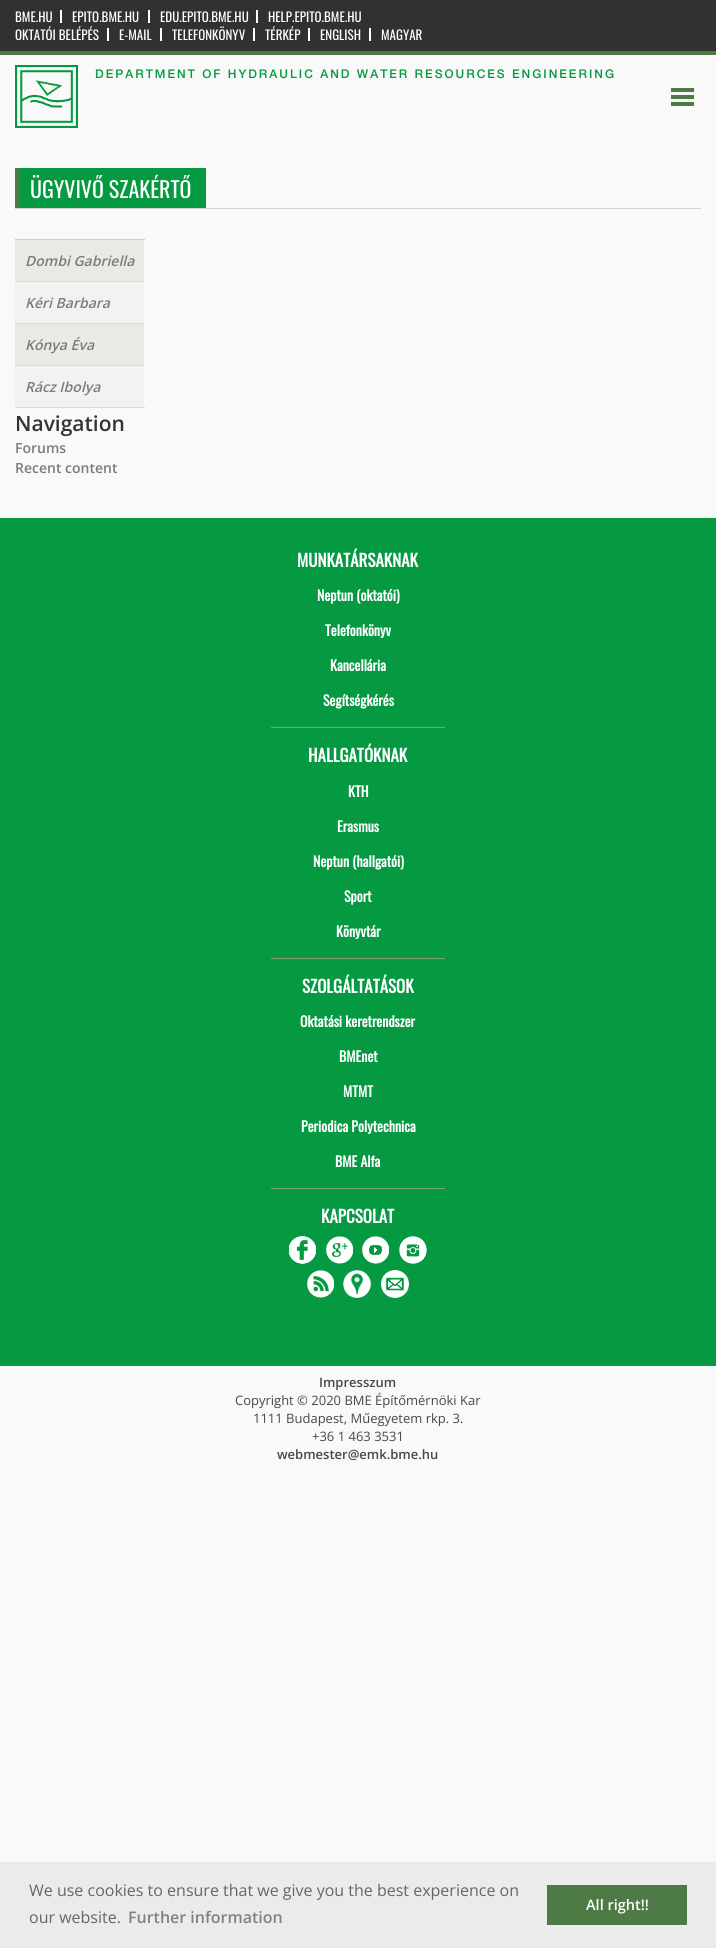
import math
import cairocffi as cairo

surface = cairo.ImageSurface(cairo.FORMAT_RGB24, 716, 1948)
ctx = cairo.Context(surface)
options = cairo.FontOptions()
options.set_hint_metrics(cairo.HINT_METRICS_OFF)
options.set_hint_style(cairo.HINT_STYLE_NONE)
ctx.set_font_options(options)
ctx.set_miter_limit(4)


def rgb(r, g, b):
    ctx.set_source_rgb(r / 255, g / 255, b / 255)


def face(family, size, italic, bold):
    ctx.select_font_face(family, cairo.FONT_SLANT_ITALIC if italic else cairo.FONT_SLANT_NORMAL, cairo.FONT_WEIGHT_BOLD if bold else cairo.FONT_WEIGHT_NORMAL)
    ctx.set_font_size(size)


def label(x, y, s):
    ctx.move_to(x, y)
    ctx.show_text(s)


def tracked(x, y, s, letter, word):
    ctx.move_to(x, y)
    for ch in s:
        ctx.show_text(ch)
        ctx.rel_move_to(letter + word * (ch == ' '), 0)


def rect(x, y, w, h):
    ctx.rectangle(x, y, w, h)
    ctx.fill()


def image(path, x, y, w, h):
    ctx.save()
    ctx.set_source_surface(cairo.ImageSurface.create_from_png(path), x, y)
    ctx.rectangle(x, y, w, h)
    ctx.fill()
    ctx.restore()


rgb(249, 249, 250)
ctx.paint()
rgb(49, 49, 49)
rect(0, 0, 716, 51)
rgb(78, 122, 69)
rect(0, 51, 716, 4)
face('Oswald', 13, 0, 0)
rgb(255, 255, 255)
label(15, 22, 'BME.HU')
rect(60, 10, 2, 13)
label(72, 22, 'EPITO.BME.HU')
rect(148, 10, 2, 13)
label(160, 22, 'EDU.EPITO.BME.HU')
rect(256, 10, 2, 13)
label(268, 22, 'HELP.EPITO.BME.HU')
label(15, 40, 'OKTATÓI BELÉPÉS')
rect(107, 28, 2, 13)
label(119, 40, 'E-MAIL')
rect(160, 28, 2, 13)
label(172, 40, 'TELEFONKÖNYV')
rect(253, 28, 2, 13)
label(265, 40, 'TÉRKÉP')
rect(308, 28, 2, 13)
label(320, 40, 'ENGLISH')
rect(369, 28, 2, 13)
label(381, 40, 'MAGYAR')
image('image0.png', 15, 65, 63, 63)
face('Helvetica Neue Medium', 12, 0, 0)
rgb(5, 153, 65)
tracked(95, 78, 'DEPARTMENT OF HYDRAULIC AND WATER RESOURCES ENGINEERING', 2, 0)
rgb(78, 122, 69)
rect(671, 88, 23, 4)
rect(671, 95, 23, 4)
rect(671, 102, 23, 4)
rgb(210, 210, 210)
rect(15, 208, 686, 1)
rgb(5, 153, 65)
rect(19, 168, 187, 40)
rgb(78, 122, 69)
rect(15, 168, 4, 40)
face('Oswald', 22, 0, 0)
rgb(255, 255, 255)
label(30, 198, 'ÜGYVIVŐ SZAKÉRTŐ')
rgb(204, 204, 204)
rect(15, 239, 130, 1)
rgb(232, 235, 228)
rect(15, 240, 129, 41)
rgb(213, 220, 226)
rect(15, 281, 130, 1)
face('Open Sans SemiBold', 14, 1, 0)
rgb(123, 123, 123)
label(25, 266, 'Dombi Gabriella')
rgb(241, 243, 240)
rect(15, 282, 129, 41)
rgb(213, 220, 226)
rect(15, 323, 130, 1)
rgb(123, 123, 123)
label(25, 308, 'Kéri Barbara')
rgb(232, 235, 228)
rect(15, 324, 129, 41)
rgb(213, 220, 226)
rect(15, 365, 130, 1)
rgb(123, 123, 123)
label(25, 350, 'Kónya Éva')
rgb(241, 243, 240)
rect(15, 366, 129, 41)
rgb(213, 220, 226)
rect(15, 407, 130, 1)
rgb(123, 123, 123)
label(25, 392, 'Rácz Ibolya')
face('Open Sans SemiBold', 21, 0, 0)
rgb(51, 51, 51)
label(15, 431, 'Navigation')
face('Open Sans SemiBold', 14, 0, 0)
rgb(123, 123, 123)
label(15, 453, 'Forums')
label(15, 473, 'Recent content')
rgb(5, 153, 65)
rect(0, 518, 716, 848)
rgb(125, 162, 110)
rect(271, 727, 174, 1)
face('Oswald', 17, 0, 1)
rgb(255, 255, 255)
label(297, 567, 'MUNKATÁRSAKNAK')
face('Oswald', 14, 0, 1)
label(317, 601, 'Neptun (oktatói)')
label(325, 636, 'Telefonkönyv')
label(330, 671, 'Kancellária')
label(323, 706, 'Segítségkérés')
rgb(125, 162, 110)
rect(271, 958, 174, 1)
face('Oswald', 17, 0, 1)
rgb(255, 255, 255)
label(308, 762, 'HALLGATÓKNAK')
face('Oswald', 14, 0, 1)
label(348, 797, 'KTH')
label(337, 832, 'Erasmus')
label(313, 867, 'Neptun (hallgatói)')
label(344, 902, 'Sport')
label(336, 937, 'Könyvtár')
rgb(125, 162, 110)
rect(271, 1188, 174, 1)
face('Oswald', 17, 0, 1)
rgb(255, 255, 255)
label(302, 993, 'SZOLGÁLTATÁSOK')
face('Oswald', 14, 0, 1)
label(300, 1027, 'Oktatási keretrendszer')
label(339, 1062, 'BMEnet')
label(343, 1097, 'MTMT')
label(301, 1132, 'Periodica Polytechnica')
label(335, 1167, 'BME Alfa')
face('Oswald', 17, 0, 1)
label(321, 1223, 'KAPCSOLAT')
image('image1.png', 289, 1236, 27, 28)
image('image2.png', 326, 1236, 27, 28)
image('image3.png', 362, 1236, 27, 28)
image('image4.png', 399, 1236, 28, 28)
image('image5.png', 307, 1270, 27, 28)
image('image6.png', 343, 1270, 28, 28)
image('image7.png', 381, 1270, 28, 28)
face('Open Sans SemiBold', 13, 0, 0)
rgb(72, 72, 72)
label(319, 1387, 'Impresszum')
face('Open Sans', 13, 0, 0)
label(235, 1405, 'Copyright © 2020 BME Építőmérnöki Kar')
label(253, 1423, '1111 Budapest, Műegyetem rkp. 3.')
label(312, 1441, '+36 1 463 3531')
face('Open Sans SemiBold', 13, 0, 0)
label(277, 1459, 'webmester@emk.bme.hu')
rgb(235, 235, 235)
rect(0, 1862, 716, 86)
face('Open Sans', 16, 0, 0)
rgb(102, 102, 102)
label(29, 1896, 'We use cookies to ensure that we give you the best experience on')
label(29, 1923, 'our website.')
face('Open Sans SemiBold', 16, 0, 0)
rgb(129, 129, 129)
label(128, 1923, 'Further information')
rgb(78, 122, 69)
rect(547, 1885, 140, 40)
face('Open Sans SemiBold', 14.5, 0, 0)
rgb(255, 255, 255)
label(586, 1910, 'All right!!')
surface.write_to_png('render.png')
